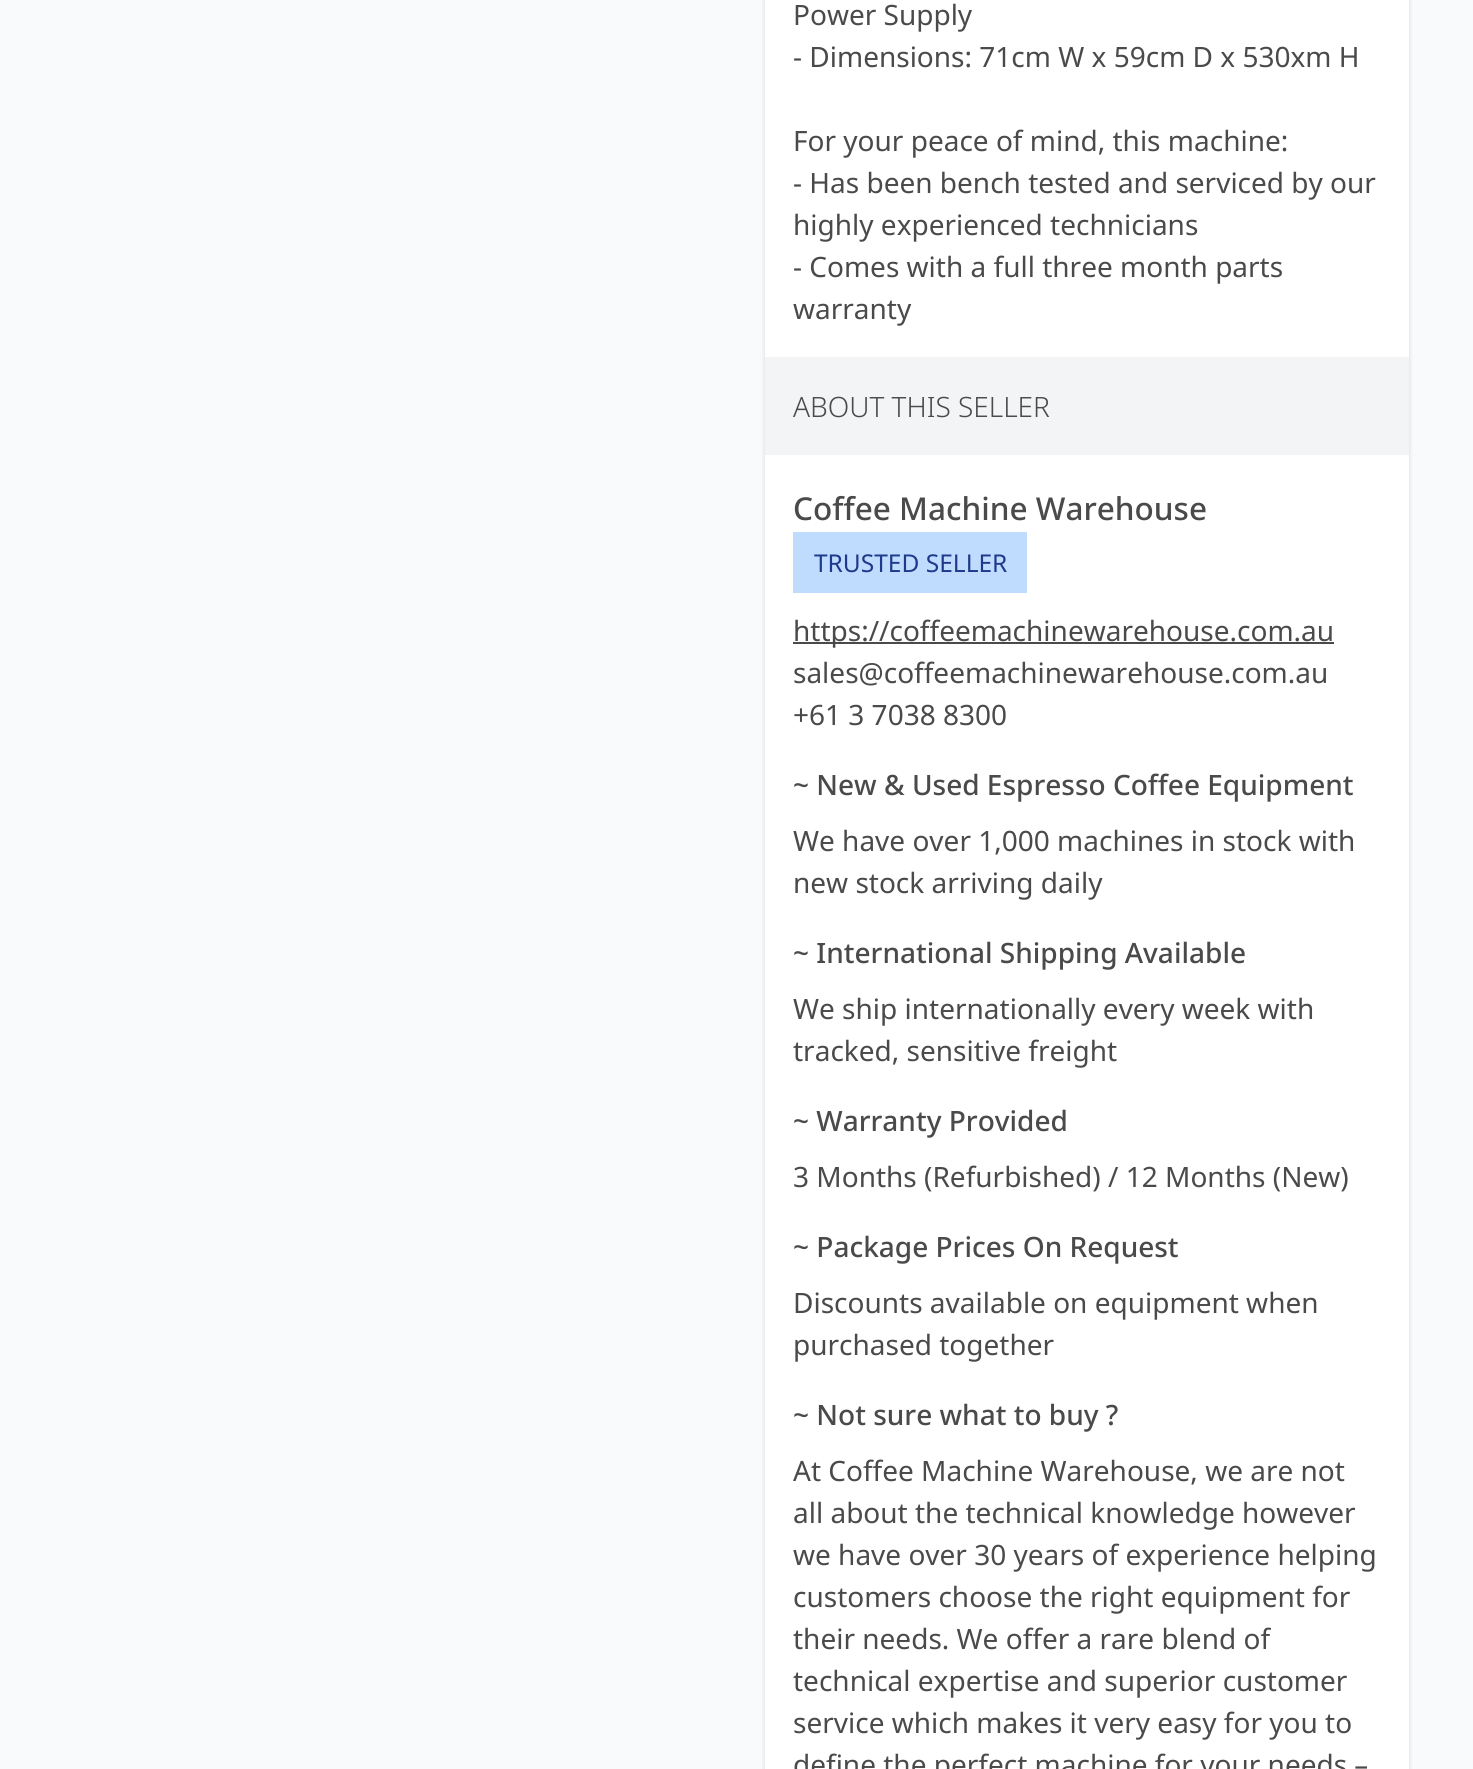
import math
import cairocffi as cairo

surface = cairo.ImageSurface(cairo.FORMAT_RGB24, 1473, 1769)
ctx = cairo.Context(surface)
options = cairo.FontOptions()
options.set_hint_metrics(cairo.HINT_METRICS_OFF)
options.set_hint_style(cairo.HINT_STYLE_NONE)
ctx.set_font_options(options)
ctx.set_miter_limit(4)


def rgb(r, g, b):
    ctx.set_source_rgb(r / 255, g / 255, b / 255)


def face(family, size, italic, bold):
    ctx.select_font_face(family, cairo.FONT_SLANT_ITALIC if italic else cairo.FONT_SLANT_NORMAL, cairo.FONT_WEIGHT_BOLD if bold else cairo.FONT_WEIGHT_NORMAL)
    ctx.set_font_size(size)


def label(x, y, s):
    ctx.move_to(x, y)
    ctx.show_text(s)


def rect(x, y, w, h):
    ctx.rectangle(x, y, w, h)
    ctx.fill()


def rrect(x, y, w, h, r):
    ctx.new_sub_path()
    for i, (u, v) in enumerate([(x + w - r, y + h - r), (x + r, y + h - r), (x + r, y + r), (x + w - r, y + r)]):
        ctx.arc(u, v, r, i * math.pi / 2, (i + 1) * math.pi / 2)
    ctx.close_path()


def soft_shadow(x, y, w, h, r, blur, alpha):
    ctx.push_group_with_content(cairo.CONTENT_ALPHA)
    ctx.set_operator(cairo.OPERATOR_SOURCE)
    for i in range(15, -16, -2):
        e = blur * i / 6
        if min(w, h) + 2 * e > 0:
            ctx.set_source_rgba(0, 0, 0, alpha * math.erfc((i - 1) / 8.5) / 2)
            rrect(x - e, y - e, w + 2 * e, h + 2 * e, max(0, min(r + e + blur * .6, min(w, h) / 2 + e)))
            ctx.fill()
    ctx.mask(ctx.pop_group())


rgb(249, 250, 251)
ctx.paint()
rgb(0, 0, 0)
soft_shadow(765, -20, 644, 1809, 14, 2, 0.06)
soft_shadow(765, -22, 644, 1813, 14, 2.5, 0.1)
rgb(255, 255, 255)
rect(765, 0, 644, 1769)
face('Noto Sans', 28, 0, 0)
rgb(74, 74, 74)
label(793, 25, 'Power Supply')
label(793, 67, '- Dimensions: 71cm W x 59cm D x 530xm H')
label(793, 151, 'For your peace of mind, this machine:')
label(793, 193, '- Has been bench tested and serviced by our')
label(793, 235, 'highly experienced technicians')
label(793, 277, '- Comes with a full three month parts')
label(793, 319, 'warranty')
rgb(243, 244, 246)
rect(765, 357, 644, 98)
face('Noto Sans Light', 28, 0, 0)
rgb(74, 74, 74)
label(793, 417, 'ABOUT THIS SELLER')
face('Noto Sans Medium', 31.5, 0, 0)
label(793, 520, 'Coffee Machine Warehouse')
rgb(191, 219, 254)
rect(793, 532, 234, 61)
face('Noto Sans', 24.5, 0, 0)
rgb(30, 58, 138)
label(814, 572, 'TRUSTED SELLER')
rgb(74, 74, 74)
rect(793, 642, 541, 2)
face('Noto Sans', 28, 0, 0)
label(793, 641, 'https://coffeemachinewarehouse.com.au')
label(793, 683, 'sales@coffeemachinewarehouse.com.au')
label(793, 725, '+61 3 7038 8300')
face('Noto Sans Medium', 28, 0, 0)
label(793, 795, '~ New & Used Espresso Coffee Equipment')
face('Noto Sans', 28, 0, 0)
label(793, 851, 'We have over 1,000 machines in stock with')
label(793, 893, 'new stock arriving daily')
face('Noto Sans Medium', 28, 0, 0)
label(793, 963, '~ International Shipping Available')
face('Noto Sans', 28, 0, 0)
label(793, 1019, 'We ship internationally every week with')
label(793, 1061, 'tracked, sensitive freight')
face('Noto Sans Medium', 28, 0, 0)
label(793, 1131, '~ Warranty Provided')
face('Noto Sans', 28, 0, 0)
label(793, 1187, '3 Months (Refurbished) / 12 Months (New)')
face('Noto Sans Medium', 28, 0, 0)
label(793, 1257, '~ Package Prices On Request')
face('Noto Sans', 28, 0, 0)
label(793, 1313, 'Discounts available on equipment when')
label(793, 1355, 'purchased together')
face('Noto Sans Medium', 28, 0, 0)
label(793, 1425, '~ Not sure what to buy ?')
face('Noto Sans', 28, 0, 0)
label(793, 1481, 'At Coffee Machine Warehouse, we are not')
label(793, 1523, 'all about the technical knowledge however')
label(793, 1565, 'we have over 30 years of experience helping')
label(793, 1607, 'customers choose the right equipment for')
label(793, 1649, 'their needs. We offer a rare blend of')
label(793, 1691, 'technical expertise and superior customer')
label(793, 1733, 'service which makes it very easy for you to')
label(793, 1775, 'define the perfect machine for your needs –')
surface.write_to_png('render.png')
